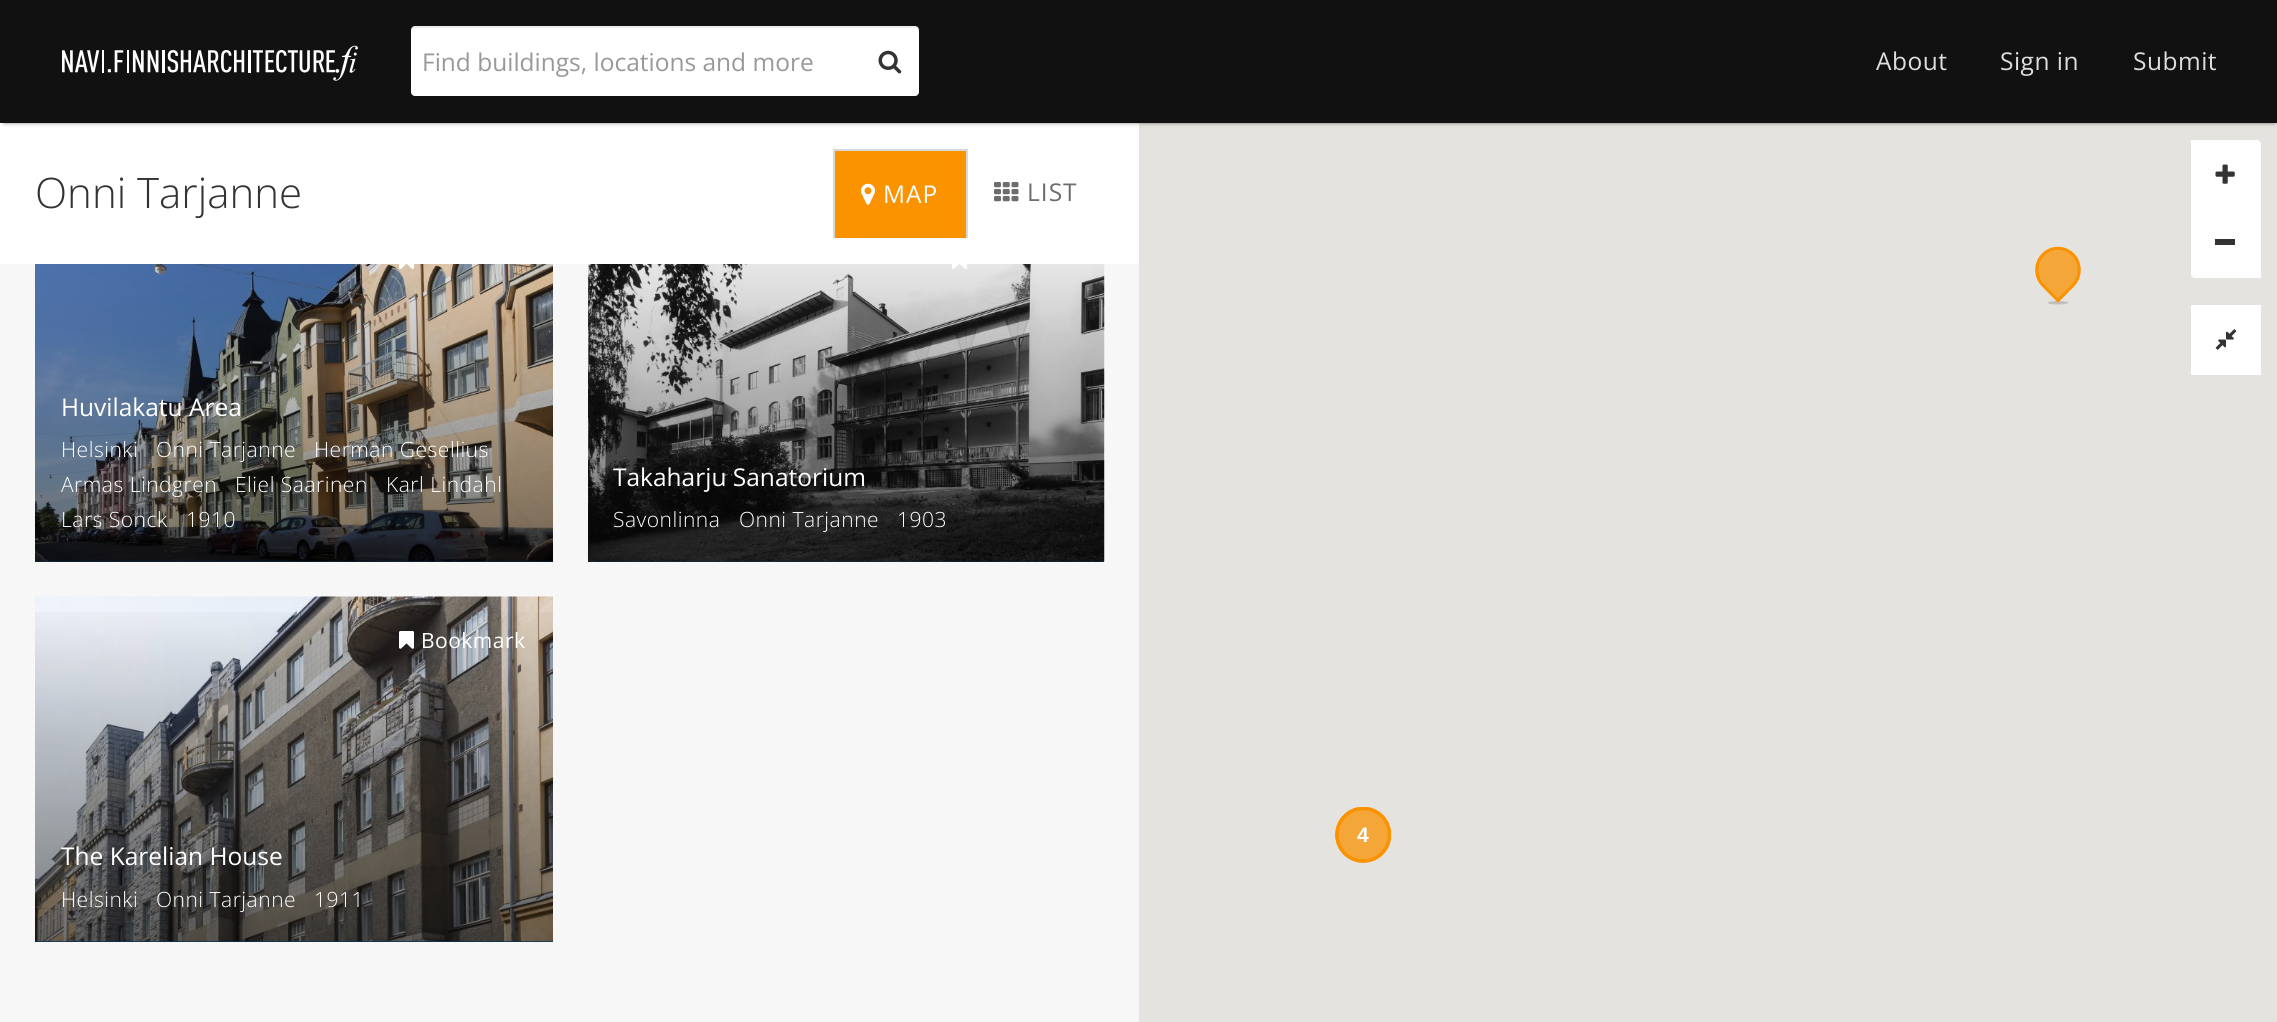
import math
import cairocffi as cairo

surface = cairo.ImageSurface(cairo.FORMAT_RGB24, 2277, 1022)
ctx = cairo.Context(surface)
options = cairo.FontOptions()
options.set_hint_metrics(cairo.HINT_METRICS_OFF)
options.set_hint_style(cairo.HINT_STYLE_NONE)
ctx.set_font_options(options)
ctx.set_miter_limit(4)


def rgb(r, g, b):
    ctx.set_source_rgb(r / 255, g / 255, b / 255)


def face(family, size, italic, bold):
    ctx.select_font_face(family, cairo.FONT_SLANT_ITALIC if italic else cairo.FONT_SLANT_NORMAL, cairo.FONT_WEIGHT_BOLD if bold else cairo.FONT_WEIGHT_NORMAL)
    ctx.set_font_size(size)


def label(x, y, s):
    ctx.move_to(x, y)
    ctx.show_text(s)


def tracked(x, y, s, letter, word):
    ctx.move_to(x, y)
    for ch in s:
        ctx.show_text(ch)
        ctx.rel_move_to(letter + word * (ch == ' '), 0)


def rect(x, y, w, h):
    ctx.rectangle(x, y, w, h)
    ctx.fill()


def rrect(x, y, w, h, r):
    ctx.new_sub_path()
    for i, (u, v) in enumerate([(x + w - r, y + h - r), (x + r, y + h - r), (x + r, y + r), (x + w - r, y + r)]):
        ctx.arc(u, v, r, i * math.pi / 2, (i + 1) * math.pi / 2)
    ctx.close_path()


def soft_shadow(x, y, w, h, r, blur, alpha):
    ctx.push_group_with_content(cairo.CONTENT_ALPHA)
    ctx.set_operator(cairo.OPERATOR_SOURCE)
    for i in range(15, -16, -2):
        e = blur * i / 6
        if min(w, h) + 2 * e > 0:
            ctx.set_source_rgba(0, 0, 0, alpha * math.erfc((i - 1) / 8.5) / 2)
            rrect(x - e, y - e, w + 2 * e, h + 2 * e, max(0, min(r + e + blur * .6, min(w, h) / 2 + e)))
            ctx.fill()
    ctx.mask(ctx.pop_group())


def image(path, x, y, w, h):
    ctx.save()
    ctx.set_source_surface(cairo.ImageSurface.create_from_png(path), x, y)
    ctx.rectangle(x, y, w, h)
    ctx.fill()
    ctx.restore()


rgb(247, 247, 247)
ctx.paint()
rgb(255, 255, 255)
rect(0, 123, 1139, 141)
rgb(229, 227, 223)
rect(1139, 123, 1138, 899)
rgb(0, 0, 0)
soft_shadow(4, 7, 2271, 116, 0, 2, 0.5)
rgb(17, 17, 17)
rect(0, 0, 2277, 123)
image('image0.png', 62, 45, 296, 36)
rgb(255, 255, 255)
rrect(411, 26, 508, 70, 4)
ctx.fill()
ctx.set_source_rgba(0, 0, 0, 0.07)
ctx.new_path()
ctx.move_to(415, 28)
ctx.line_to(915, 28)
ctx.curve_to(917, 28, 919, 30, 919, 32)
ctx.curve_to(919, 29, 919, 26, 915, 26)
ctx.line_to(415, 26)
ctx.curve_to(411, 26, 411, 29, 411, 32)
ctx.curve_to(411, 30, 413, 28, 415, 28)
ctx.close_path()
ctx.fill()
face('Open Sans', 24.5, 0, 0)
rgb(153, 153, 153)
label(422, 71, 'Find buildings, locations and more')
image('image1.png', 878, 50, 24, 24)
rgb(221, 221, 221)
tracked(1876, 70, 'About', 0.5, 0)
tracked(2000, 70, 'Sign in', 0.5, 0)
tracked(2133, 70, 'Submit', 0.5, 0)
face('Open Sans Light', 42, 0, 0)
rgb(51, 51, 51)
label(35, 208, 'Onni Tarjanne')
rgb(251, 146, 0)
rect(835, 151, 131, 87)
rgb(216, 216, 216)
rect(833, 149, 135, 2)
rect(966, 149, 2, 89)
rect(833, 149, 2, 89)
image('image2.png', 861, 183, 14, 22)
face('Open Sans', 24.5, 0, 0)
rgb(255, 255, 255)
tracked(883, 203, 'MAP', 1, 0)
image('image3.png', 994, 182, 25, 20)
rgb(109, 109, 109)
tracked(1027, 201, 'LIST', 1, 0)
rgb(17, 102, 170)
rect(35, 561, 518, 1)
image('image4.png', 35, 264, 518, 298)
gradient = cairo.LinearGradient(294, 217, 294, 562)
gradient.add_color_stop_rgba(0, 0, 0, 0, 0)
gradient.add_color_stop_rgba(1, 0, 0, 0, 0.5)
ctx.set_source(gradient)
rect(35, 264, 518, 298)
image('image5.png', 399, 264, 15, 5)
rgb(255, 255, 255)
label(61, 416, 'Huvilakatu Area')
face('Open Sans Light', 21, 0, 0)
tracked(61, 457, 'Helsinki', 0.5, 0)
tracked(156, 457, 'Onni Tarjanne', 0.5, 0)
tracked(314, 457, 'Herman Gesellius', 0.5, 0)
tracked(61, 492, 'Armas Lindgren', 0.5, 0)
tracked(235, 492, 'Eliel Saarinen', 0.5, 0)
tracked(386, 492, 'Karl Lindahl', 0.5, 0)
tracked(61, 527, 'Lars Sonck', 0.5, 0)
tracked(186, 527, '1910', 0.5, 0)
rgb(17, 102, 170)
rect(588, 561, 516, 1)
image('image6.png', 588, 264, 517, 298)
gradient = cairo.LinearGradient(846, 217, 846, 562)
gradient.add_color_stop_rgba(0, 0, 0, 0, 0)
gradient.add_color_stop_rgba(1, 0, 0, 0, 0.5)
ctx.set_source(gradient)
rect(588, 264, 516, 298)
image('image7.png', 952, 264, 15, 5)
face('Open Sans', 24.5, 0, 0)
rgb(255, 255, 255)
label(613, 486, 'Takaharju Sanatorium')
face('Open Sans Light', 21, 0, 0)
tracked(613, 527, 'Savonlinna', 0.5, 0)
tracked(739, 527, 'Onni Tarjanne', 0.5, 0)
tracked(897, 527, '1903', 0.5, 0)
rgb(17, 102, 170)
rect(35, 941, 518, 1)
image('image8.png', 35, 596, 518, 346)
gradient = cairo.LinearGradient(294, 597, 294, 942)
gradient.add_color_stop_rgba(0, 0, 0, 0, 0)
gradient.add_color_stop_rgba(1, 0, 0, 0, 0.5)
ctx.set_source(gradient)
rect(35, 612, 518, 330)
image('image9.png', 399, 631, 15, 18)
face('Open Sans', 21, 0, 0)
rgb(255, 255, 255)
tracked(421, 648, 'Bookmark', 0.5, 0)
face('Open Sans', 24.5, 0, 0)
label(61, 865, 'The Karelian House')
face('Open Sans Light', 21, 0, 0)
tracked(61, 907, 'Helsinki', 0.5, 0)
tracked(156, 907, 'Onni Tarjanne', 0.5, 0)
tracked(314, 907, '1911', 0.5, 0)
ctx.new_path()
ctx.move_to(2191, 140)
ctx.line_to(2257, 140)
ctx.curve_to(2259, 140, 2261, 142, 2261, 144)
ctx.line_to(2261, 210)
ctx.line_to(2191, 210)
ctx.close_path()
ctx.fill()
image('image10.png', 2215, 164, 20, 20)
ctx.new_path()
ctx.move_to(2191, 208)
ctx.line_to(2261, 208)
ctx.line_to(2261, 278)
ctx.line_to(2195, 278)
ctx.curve_to(2193, 278, 2191, 276, 2191, 274)
ctx.close_path()
ctx.fill()
rgb(51, 51, 51)
rect(2215, 239, 20, 6)
rgb(255, 255, 255)
rect(2191, 305, 70, 70)
image('image11.png', 2215, 329, 22, 21)
image('image12.png', 2035, 246, 46, 59)
image('image13.png', 1335, 807, 56, 56)
face('Liberation Sans', 21, 0, 1)
label(1357, 842, '4')
surface.write_to_png('render.png')
